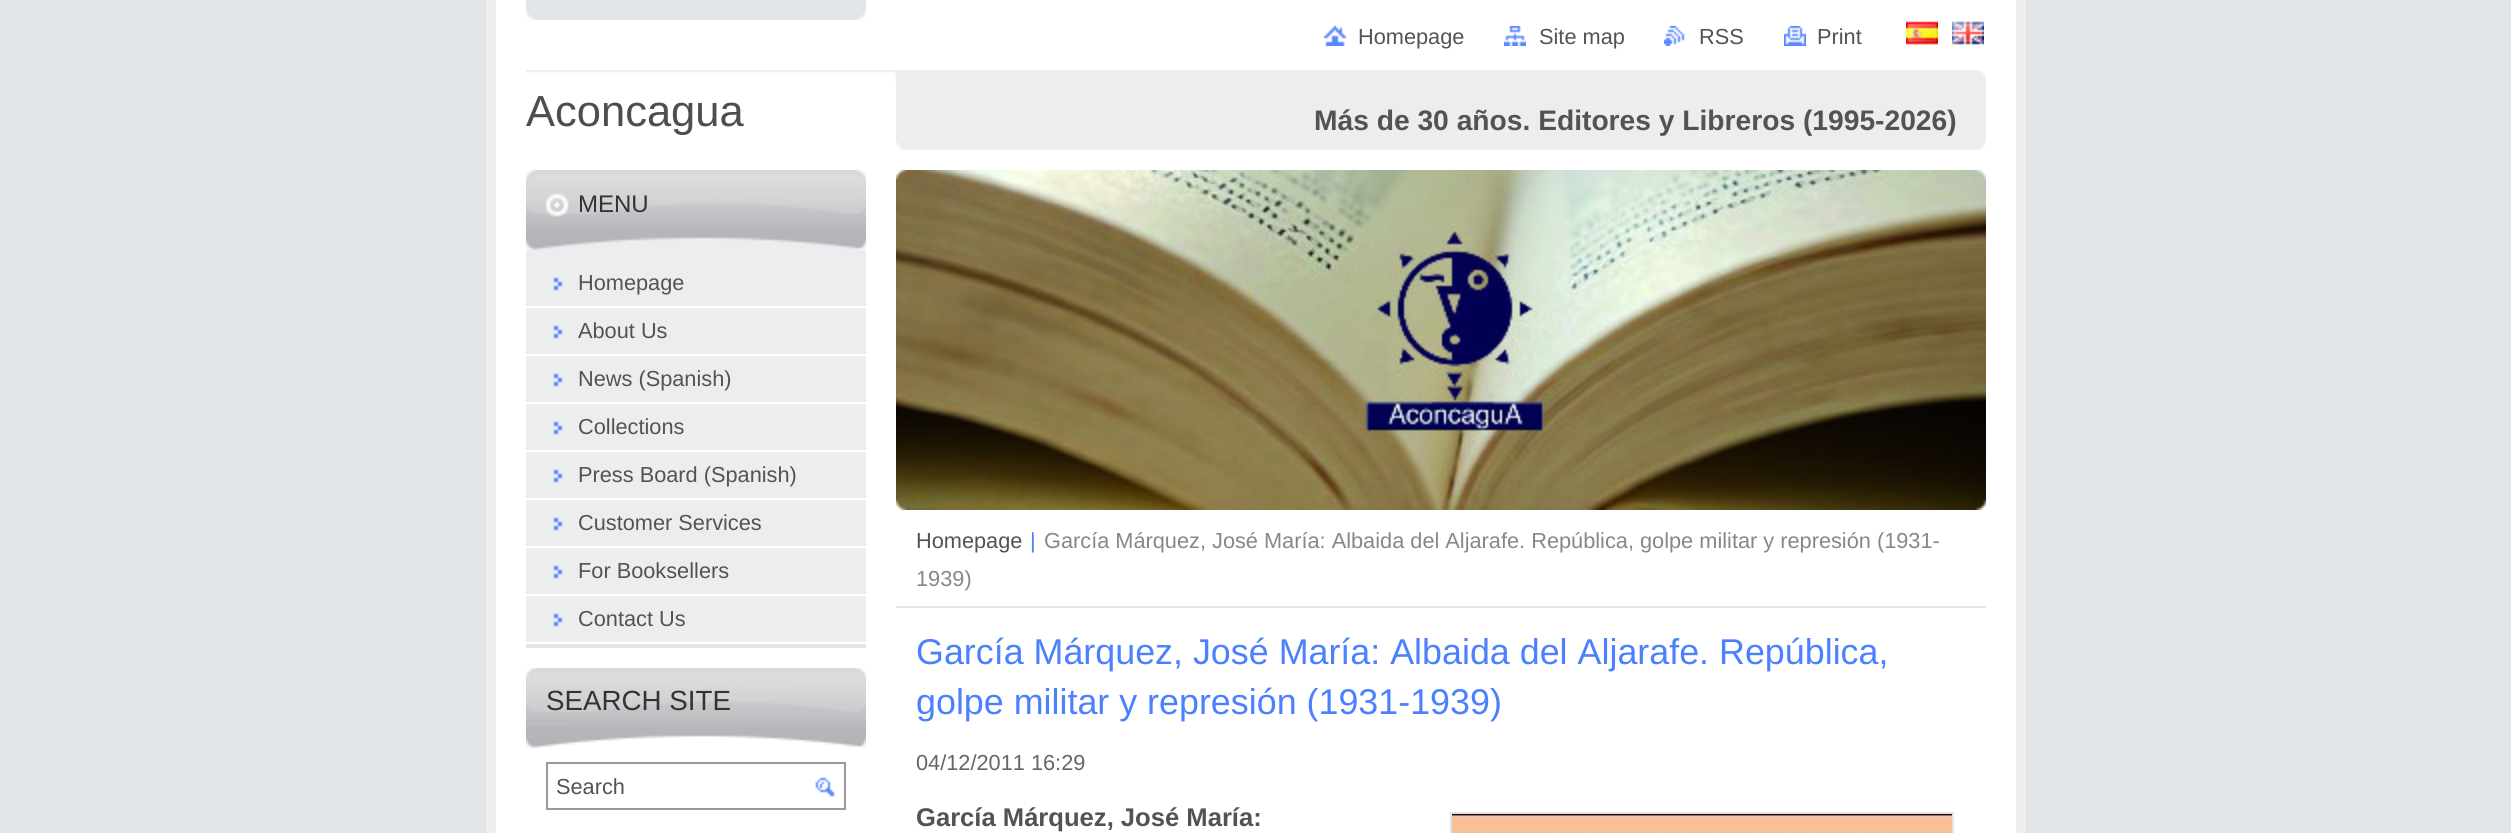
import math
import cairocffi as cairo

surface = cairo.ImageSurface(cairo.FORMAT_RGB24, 2511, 833)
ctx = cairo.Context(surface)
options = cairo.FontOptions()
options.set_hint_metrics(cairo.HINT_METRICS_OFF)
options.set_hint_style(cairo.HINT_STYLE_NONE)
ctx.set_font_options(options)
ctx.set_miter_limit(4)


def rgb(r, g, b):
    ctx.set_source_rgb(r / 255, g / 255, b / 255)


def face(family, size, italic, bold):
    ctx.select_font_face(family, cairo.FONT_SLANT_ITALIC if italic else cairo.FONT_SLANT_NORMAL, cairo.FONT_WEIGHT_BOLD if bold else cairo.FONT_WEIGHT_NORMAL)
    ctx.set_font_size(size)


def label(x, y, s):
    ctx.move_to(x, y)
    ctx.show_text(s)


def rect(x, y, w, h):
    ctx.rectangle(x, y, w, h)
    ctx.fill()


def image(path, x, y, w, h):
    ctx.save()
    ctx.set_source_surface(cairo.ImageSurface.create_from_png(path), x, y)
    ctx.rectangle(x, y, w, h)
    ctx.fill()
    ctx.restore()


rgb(226, 229, 232)
ctx.paint()
rgb(255, 255, 255)
rect(496, 0, 1520, 833)
image('image0.png', 526, 0, 340, 20)
rgb(239, 239, 239)
rect(2016, 0, 10, 833)
rect(486, 0, 10, 833)
image('image1.png', 1324, 26, 22, 20)
face('Liberation Sans', 21.75, 0, 0)
rgb(83, 83, 83)
label(1358, 44, 'Homepage')
image('image2.png', 1504, 26, 22, 20)
label(1539, 44, 'Site map')
image('image3.png', 1664, 26, 21, 20)
label(1699, 44, 'RSS')
image('image4.png', 1784, 26, 22, 20)
label(1817, 44, 'Print')
image('image5.png', 1906, 21, 32, 24)
image('image6.png', 1952, 21, 32, 24)
image('image7.png', 526, 70, 1460, 12)
face('Liberation Sans', 43.5, 0, 0)
rgb(77, 78, 79)
label(526, 126, 'Aconcagua')
rgb(235, 237, 239)
rect(896, 82, 1090, 59)
image('image8.png', 896, 141, 1090, 9)
face('Liberation Sans', 28.2, 0, 1)
rgb(83, 83, 83)
label(1314, 130, 'Más de 30 años. Editores y Libreros (1995-2026)')
rgb(226, 229, 232)
rect(526, 644, 340, 4)
rgb(235, 237, 239)
rect(526, 250, 340, 392)
rgb(180, 182, 185)
rect(526, 228, 340, 11)
image('image9.png', 526, 170, 340, 58)
image('image10.png', 526, 237, 340, 13)
face('Liberation Sans', 24, 0, 0)
rgb(51, 51, 51)
label(578, 212, 'MENU')
image('image11.png', 553, 277, 10, 14)
rgb(255, 255, 255)
rect(526, 306, 340, 2)
face('Liberation Sans', 21.75, 0, 0)
rgb(83, 83, 83)
label(578, 290, 'Homepage')
image('image11.png', 553, 325, 10, 14)
rgb(255, 255, 255)
rect(526, 354, 340, 2)
rgb(83, 83, 83)
label(578, 338, 'About Us')
image('image11.png', 553, 373, 10, 14)
rgb(255, 255, 255)
rect(526, 402, 340, 2)
rgb(83, 83, 83)
label(578, 386, 'News (Spanish)')
image('image11.png', 553, 421, 10, 14)
rgb(255, 255, 255)
rect(526, 450, 340, 2)
rgb(83, 83, 83)
label(578, 434, 'Collections')
image('image11.png', 553, 469, 10, 14)
rgb(255, 255, 255)
rect(526, 498, 340, 2)
rgb(83, 83, 83)
label(578, 482, 'Press Board (Spanish)')
image('image11.png', 553, 517, 10, 14)
rgb(255, 255, 255)
rect(526, 546, 340, 2)
rgb(83, 83, 83)
label(578, 530, 'Customer Services')
image('image11.png', 553, 565, 10, 14)
rgb(255, 255, 255)
rect(526, 594, 340, 2)
rgb(83, 83, 83)
label(578, 578, 'For Booksellers')
image('image11.png', 553, 613, 10, 14)
label(578, 626, 'Contact Us')
rgb(180, 182, 185)
rect(526, 726, 340, 11)
image('image12.png', 526, 668, 340, 58)
image('image13.png', 526, 735, 340, 13)
face('Liberation Sans', 27.75, 0, 0)
rgb(51, 51, 51)
label(546, 710, 'SEARCH SITE')
ctx.rectangle(547, 763, 298, 46)
rgb(153, 153, 153)
ctx.stroke()
face('Liberation Sans', 21.75, 0, 0)
rgb(83, 83, 83)
label(556, 794, 'Search')
image('image14.png', 815, 777, 20, 20)
image('image15.png', 896, 170, 1090, 340)
image('image16.png', 896, 170, 1090, 340)
rgb(226, 229, 232)
rect(896, 606, 1090, 2)
rgb(83, 83, 83)
label(916, 548, 'Homepage')
rgb(75, 128, 255)
label(1030, 548, '|')
rgb(135, 135, 135)
label(1044, 548, 'García Márquez, José María: Albaida del Aljarafe. República, golpe militar y represión (1931-')
label(916, 586, '1939)')
face('Liberation Sans', 35.85, 0, 0)
rgb(75, 128, 255)
label(916, 664, 'García Márquez, José María: Albaida del Aljarafe. República,')
label(916, 714, 'golpe militar y represión (1931-1939)')
face('Liberation Sans', 21.75, 0, 0)
rgb(102, 102, 102)
label(916, 770, '04/12/2011 16:29')
face('Liberation Sans', 25.6, 0, 1)
rgb(83, 83, 83)
label(916, 826, 'García Márquez, José María:')
ctx.rectangle(1451, 813, 502, 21)
rgb(226, 229, 232)
ctx.stroke()
image('image17.png', 1452, 814, 500, 19)
surface.write_to_png('render.png')
